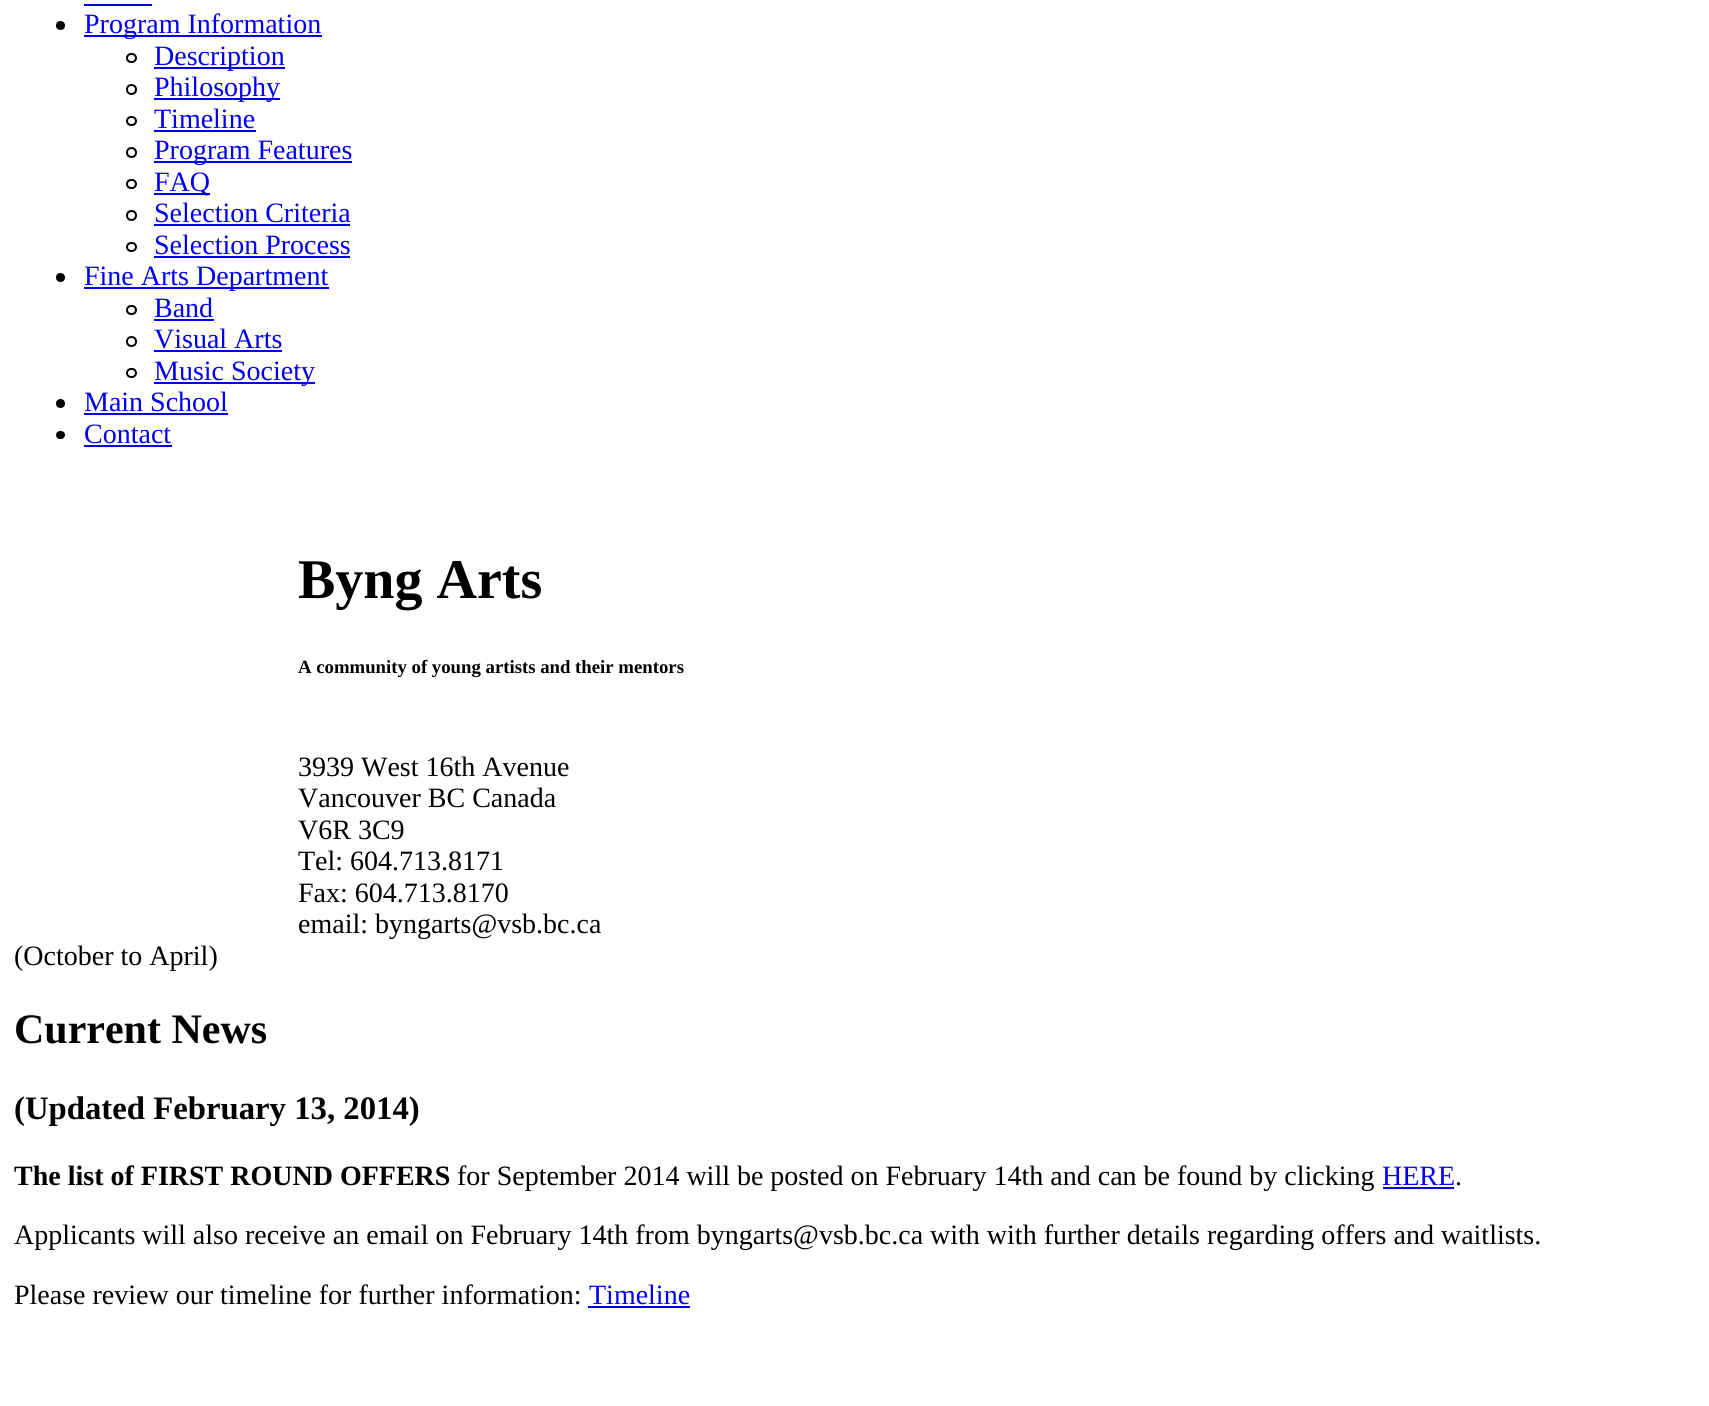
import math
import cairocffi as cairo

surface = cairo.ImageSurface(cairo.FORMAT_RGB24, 1709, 1406)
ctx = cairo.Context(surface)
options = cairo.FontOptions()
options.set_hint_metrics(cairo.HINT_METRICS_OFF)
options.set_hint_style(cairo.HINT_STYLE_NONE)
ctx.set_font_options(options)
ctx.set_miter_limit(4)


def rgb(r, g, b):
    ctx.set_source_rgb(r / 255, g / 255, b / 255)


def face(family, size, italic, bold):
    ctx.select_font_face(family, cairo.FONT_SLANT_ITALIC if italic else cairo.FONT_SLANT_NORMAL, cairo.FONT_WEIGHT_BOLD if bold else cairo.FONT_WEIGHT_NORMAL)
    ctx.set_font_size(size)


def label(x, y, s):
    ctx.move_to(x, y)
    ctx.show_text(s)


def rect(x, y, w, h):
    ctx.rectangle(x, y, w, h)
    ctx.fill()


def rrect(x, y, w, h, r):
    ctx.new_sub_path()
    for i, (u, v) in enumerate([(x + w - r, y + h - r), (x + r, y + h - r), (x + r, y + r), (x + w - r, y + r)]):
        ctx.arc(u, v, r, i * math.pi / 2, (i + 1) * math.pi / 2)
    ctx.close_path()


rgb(255, 255, 255)
ctx.paint()
rgb(0, 0, 238)
rect(84, 4, 68, 2)
rgb(0, 0, 0)
ctx.arc(60.5, 25.5, 4.5, 0, 2 * math.pi)
ctx.fill()
rgb(0, 0, 238)
rect(84, 35, 238, 2)
face('Liberation Serif', 28, 0, 0)
label(84, 33, 'Program Information')
rrect(127, 54, 9, 8, 4)
rgb(0, 0, 0)
ctx.stroke()
rgb(0, 0, 238)
rect(154, 67, 131, 2)
label(154, 65, 'Description')
ctx.new_path()
ctx.arc(131.5, 89.5, 4.5, 0, 2 * math.pi)
rgb(0, 0, 0)
ctx.stroke()
rgb(0, 0, 238)
rect(154, 98, 126, 2)
label(154, 96, 'Philosophy')
rrect(127, 117, 9, 8, 4)
rgb(0, 0, 0)
ctx.stroke()
rgb(0, 0, 238)
label(154, 128, 'Timeline')
rect(154, 130, 102, 2)
ctx.new_path()
ctx.arc(131.5, 152.5, 4.5, 0, 2 * math.pi)
rgb(0, 0, 0)
ctx.stroke()
rgb(0, 0, 238)
rect(154, 161, 198, 2)
label(154, 159, 'Program Features')
rrect(127, 180, 9, 8, 4)
rgb(0, 0, 0)
ctx.stroke()
rgb(0, 0, 238)
rect(154, 193, 56, 2)
label(154, 191, 'FAQ')
ctx.new_path()
ctx.arc(131.5, 215.5, 4.5, 0, 2 * math.pi)
rgb(0, 0, 0)
ctx.stroke()
rgb(0, 0, 238)
label(154, 222, 'Selection Criteria')
rect(154, 224, 196, 2)
rrect(127, 243, 9, 8, 4)
rgb(0, 0, 0)
ctx.stroke()
rgb(0, 0, 238)
label(154, 254, 'Selection Process')
rect(154, 256, 196, 2)
rgb(0, 0, 0)
ctx.new_path()
ctx.arc(60.5, 277.5, 4.5, 0, 2 * math.pi)
ctx.fill()
rgb(0, 0, 238)
rect(84, 287, 245, 2)
label(84, 285, 'Fine Arts Department')
rrect(127, 306, 9, 8, 4)
rgb(0, 0, 0)
ctx.stroke()
rgb(0, 0, 238)
label(154, 317, 'Band')
rect(154, 319, 60, 2)
ctx.new_path()
ctx.arc(131.5, 341.5, 4.5, 0, 2 * math.pi)
rgb(0, 0, 0)
ctx.stroke()
rgb(0, 0, 238)
label(154, 348, 'Visual Arts')
rect(154, 350, 128, 2)
rrect(127, 369, 9, 8, 4)
rgb(0, 0, 0)
ctx.stroke()
rgb(0, 0, 238)
rect(154, 382, 161, 2)
label(154, 380, 'Music Society')
rgb(0, 0, 0)
ctx.new_path()
ctx.arc(60.5, 403.5, 4.5, 0, 2 * math.pi)
ctx.fill()
rgb(0, 0, 238)
label(84, 411, 'Main School')
rect(84, 413, 144, 2)
rgb(0, 0, 0)
rrect(56, 431, 9, 8, 4)
ctx.fill()
rgb(0, 0, 238)
label(84, 443, 'Contact')
rect(84, 445, 88, 2)
face('Liberation Serif', 56, 0, 1)
rgb(0, 0, 0)
label(298, 598, 'Byng Arts')
face('Liberation Serif', 18.75, 0, 1)
label(298, 673, 'A community of young artists and their mentors')
face('Liberation Serif', 28, 0, 0)
label(298, 776, '3939 West 16th Avenue')
label(298, 807, 'Vancouver BC Canada')
label(298, 839, 'V6R 3C9')
label(298, 870, 'Tel: 604.713.8171')
label(298, 902, 'Fax: 604.713.8170')
label(298, 933, 'email: byngarts@vsb.bc.ca')
label(14, 965, '(October to April)')
face('Liberation Serif', 42, 0, 1)
label(14, 1043, 'Current News')
face('Liberation Serif', 32.75, 0, 1)
label(14, 1119, '(Updated February 13, 2014)')
face('Liberation Serif', 28, 0, 1)
label(14, 1185, 'The list of FIRST ROUND OFFERS')
face('Liberation Serif', 28, 0, 0)
label(457, 1185, 'for September 2014 will be posted on February 14th and can be found by clicking')
rgb(0, 0, 238)
label(1382, 1185, 'HERE')
rect(1383, 1187, 71, 2)
rgb(0, 0, 0)
label(1455, 1185, '.')
label(14, 1244, 'Applicants will also receive an email on February 14th from byngarts@vsb.bc.ca with with further details regarding offers and waitlists.')
label(14, 1304, 'Please review our timeline for further information:')
rgb(0, 0, 238)
label(589, 1304, 'Timeline')
rect(588, 1306, 102, 2)
surface.write_to_png('render.png')
